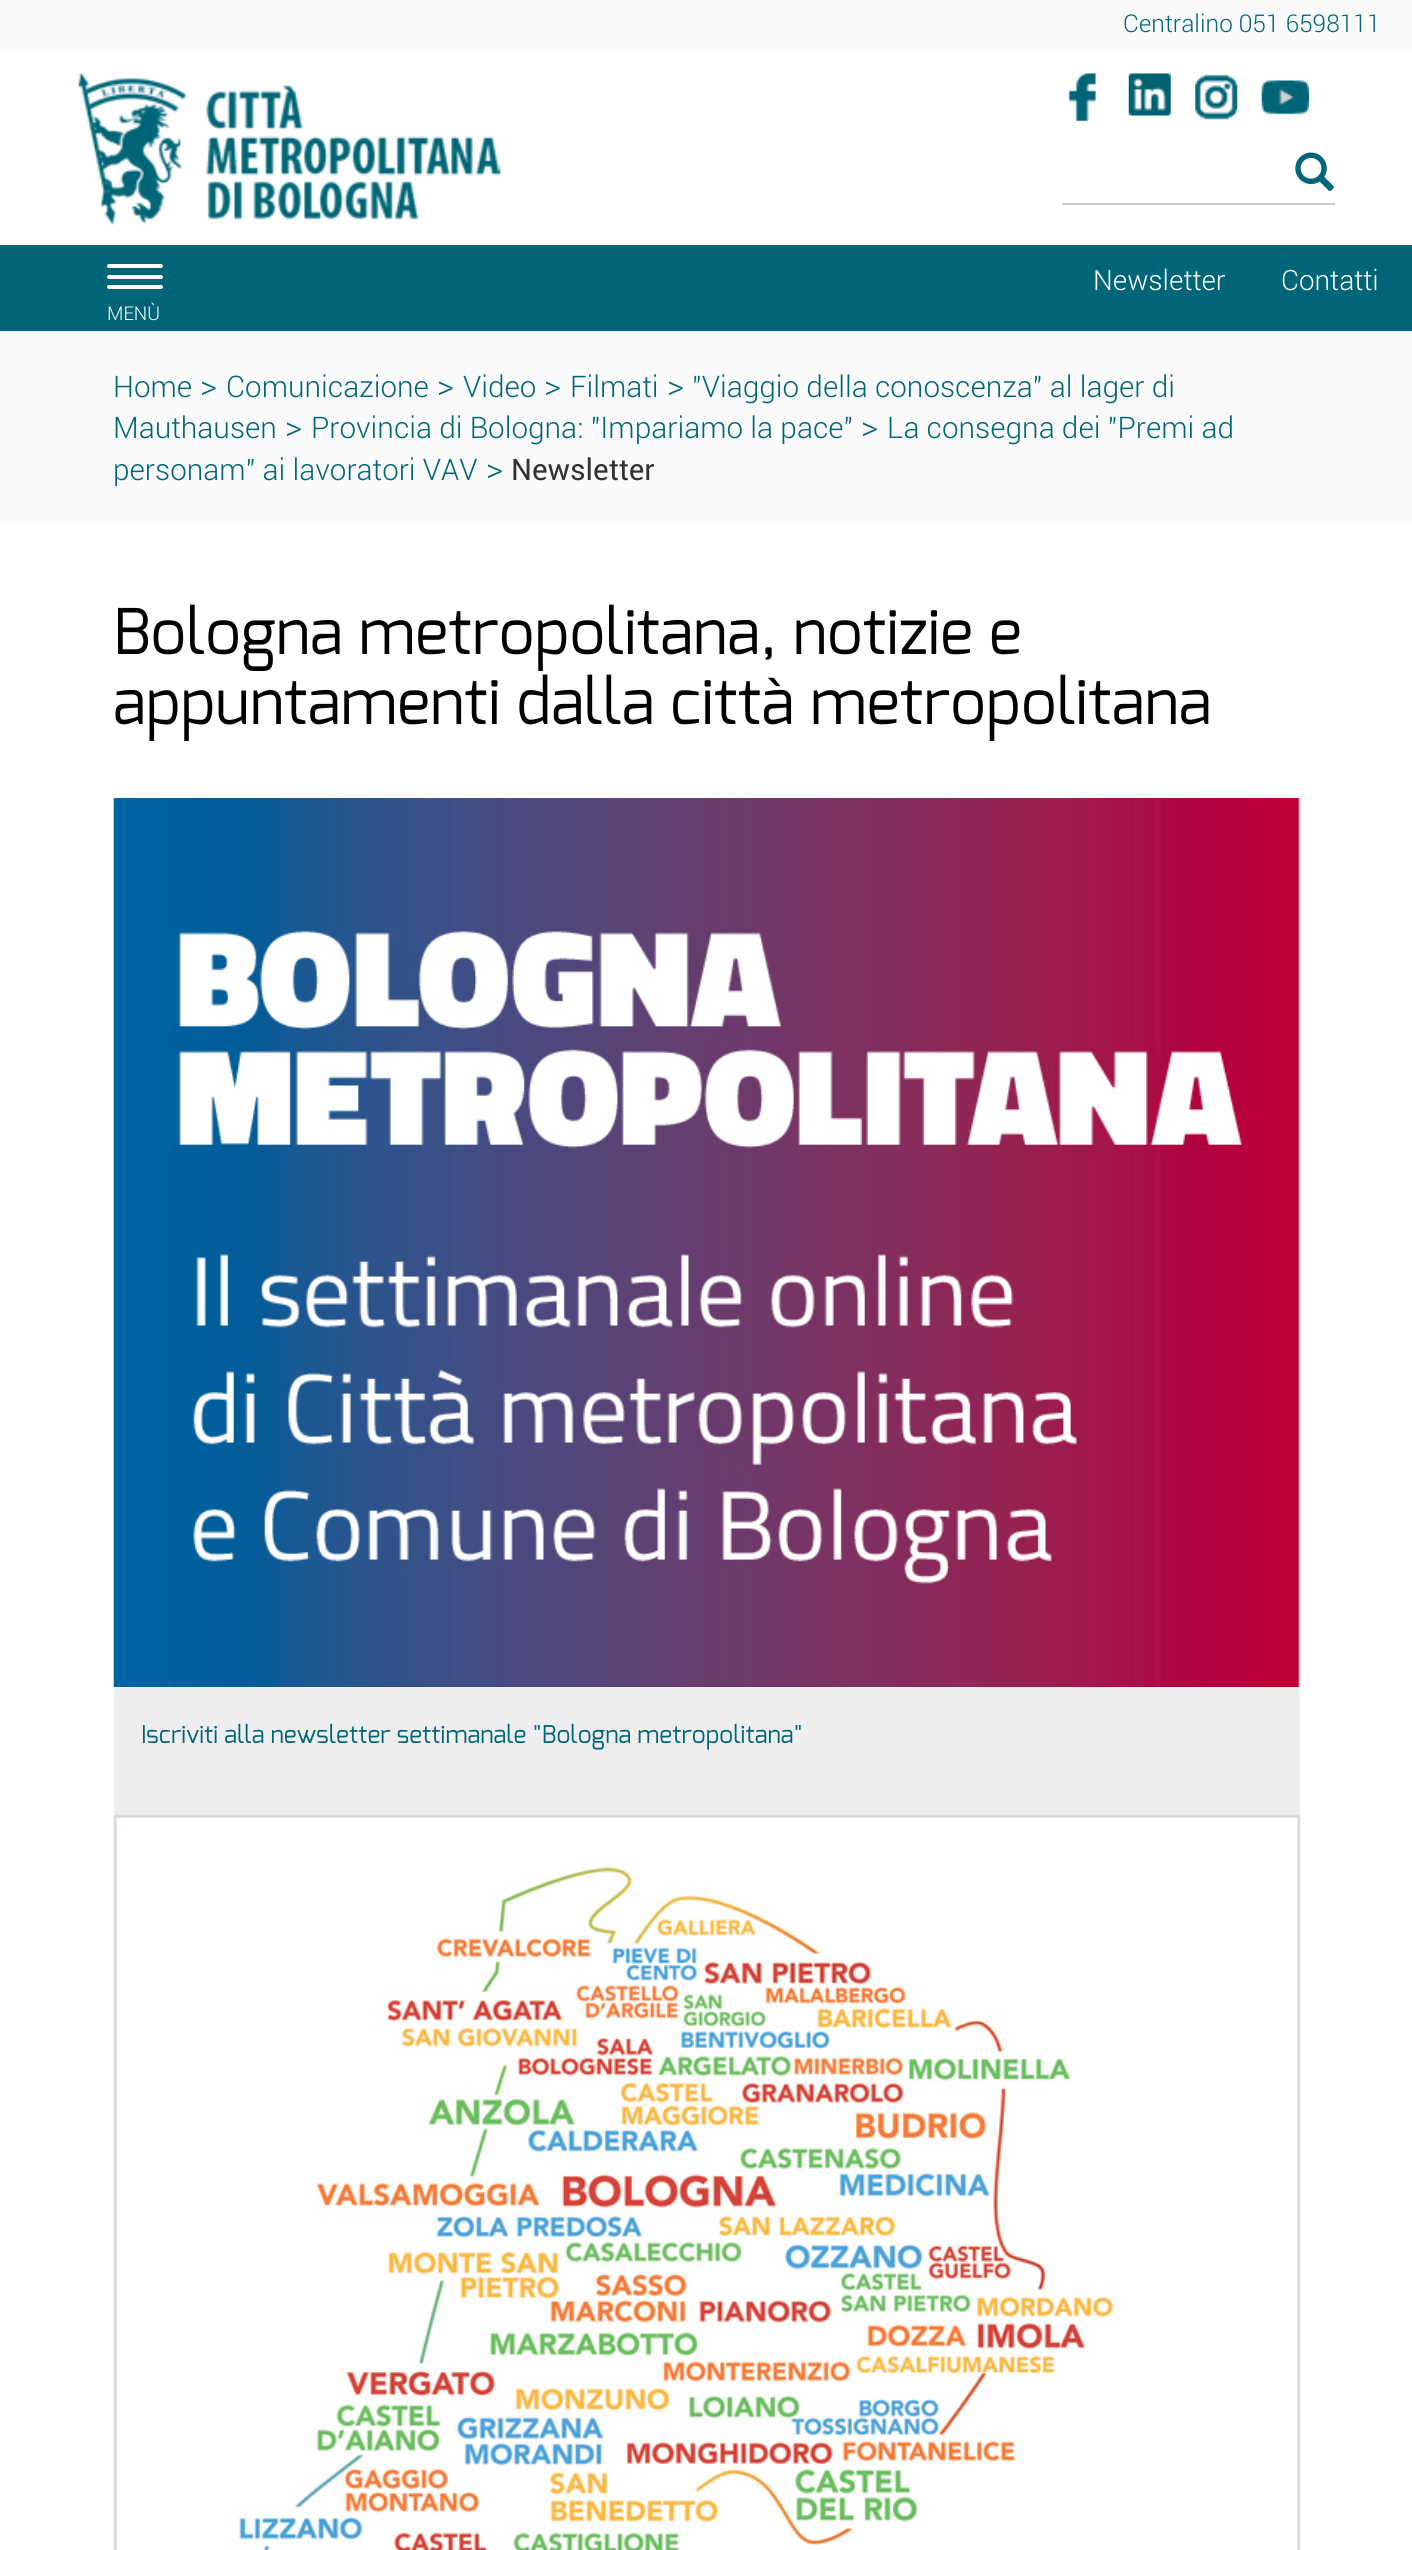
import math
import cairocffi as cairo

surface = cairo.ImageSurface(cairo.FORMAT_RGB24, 1412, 2550)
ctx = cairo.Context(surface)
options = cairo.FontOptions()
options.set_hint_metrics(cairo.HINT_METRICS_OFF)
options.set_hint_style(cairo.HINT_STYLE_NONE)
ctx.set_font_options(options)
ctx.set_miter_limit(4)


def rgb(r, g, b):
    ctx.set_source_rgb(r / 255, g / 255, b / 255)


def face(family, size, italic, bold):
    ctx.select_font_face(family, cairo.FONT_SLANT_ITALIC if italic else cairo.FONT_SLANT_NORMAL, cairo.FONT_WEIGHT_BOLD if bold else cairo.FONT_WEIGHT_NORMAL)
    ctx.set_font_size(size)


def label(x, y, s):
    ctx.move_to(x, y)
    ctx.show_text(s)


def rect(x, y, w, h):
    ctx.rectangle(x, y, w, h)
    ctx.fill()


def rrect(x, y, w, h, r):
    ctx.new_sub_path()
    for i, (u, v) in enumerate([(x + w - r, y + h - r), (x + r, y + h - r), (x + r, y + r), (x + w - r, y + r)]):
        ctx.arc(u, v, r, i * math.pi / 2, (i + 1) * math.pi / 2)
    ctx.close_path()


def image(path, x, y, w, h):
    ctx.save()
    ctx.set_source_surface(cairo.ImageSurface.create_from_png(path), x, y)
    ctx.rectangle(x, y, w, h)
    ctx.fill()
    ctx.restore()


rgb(255, 255, 255)
ctx.paint()
rgb(250, 250, 250)
rect(0, 0, 1412, 49)
face('Roboto Light', 24.5, 0, 0)
rgb(0, 102, 119)
label(1123, 32, 'Centralino 051 6598111')
image('image0.png', 78, 73, 423, 152)
image('image1.png', 1068, 73, 28, 48)
image('image2.png', 1128, 73, 43, 43)
image('image3.png', 1195, 74, 43, 46)
image('image4.png', 1261, 80, 48, 35)
image('image5.png', 1295, 152, 39, 39)
rgb(204, 204, 204)
rect(1062, 203, 273, 2)
rgb(0, 102, 119)
rect(0, 245, 1412, 86)
face('Roboto Light', 28, 0, 0)
rgb(255, 255, 255)
label(1093, 290, 'Newsletter')
label(1281, 290, 'Contatti')
rrect(107, 264, 56, 4, 2)
ctx.fill()
rrect(107, 275, 56, 4, 2)
ctx.fill()
rrect(107, 285, 56, 4, 2)
ctx.fill()
face('Roboto Light', 19, 0, 0)
label(107, 320, 'MENÙ')
rgb(250, 250, 250)
rect(0, 331, 1412, 194)
face('Roboto Light', 29.75, 0, 0)
rgb(0, 102, 119)
label(113, 397, 'Home')
face('Roboto Light', 33, 0, 0)
label(200, 397, '>')
face('Roboto Light', 29.75, 0, 0)
label(226, 397, 'Comunicazione')
face('Roboto Light', 33, 0, 0)
label(437, 397, '>')
face('Roboto Light', 29.75, 0, 0)
label(463, 397, 'Video')
face('Roboto Light', 33, 0, 0)
label(544, 397, '>')
face('Roboto Light', 29.75, 0, 0)
label(570, 397, 'Filmati')
face('Roboto Light', 33, 0, 0)
label(667, 397, '>')
face('Roboto Light', 29.75, 0, 0)
label(692, 397, '"Viaggio della conoscenza" al lager di')
label(113, 438, 'Mauthausen')
face('Roboto Light', 33, 0, 0)
label(285, 438, '>')
face('Roboto Light', 29.75, 0, 0)
label(311, 438, 'Provincia di Bologna: "Impariamo la pace"')
face('Roboto Light', 33, 0, 0)
label(861, 438, '>')
face('Roboto Light', 29.75, 0, 0)
label(887, 438, 'La consegna dei "Premi ad')
label(113, 480, 'personam" ai lavoratori VAV')
face('Roboto Light', 33, 0, 0)
label(486, 480, '>')
face('Roboto', 29.75, 0, 0)
rgb(51, 51, 51)
label(511, 480, 'Newsletter')
face('Exo', 63, 0, 0)
rgb(0, 0, 0)
label(113, 654, 'Bologna metropolitana, notizie e')
label(113, 724, 'appuntamenti dalla città metropolitana')
rgb(238, 238, 238)
rect(114, 1687, 1186, 128)
image('image6.png', 113, 798, 1188, 889)
face('Exo', 24.5, 0, 0)
rgb(0, 102, 119)
label(141, 1743, 'Iscriviti alla newsletter settimanale "Bologna metropolitana"')
image('image7.png', 113, 1814, 1188, 736)
surface.write_to_png('render.png')
